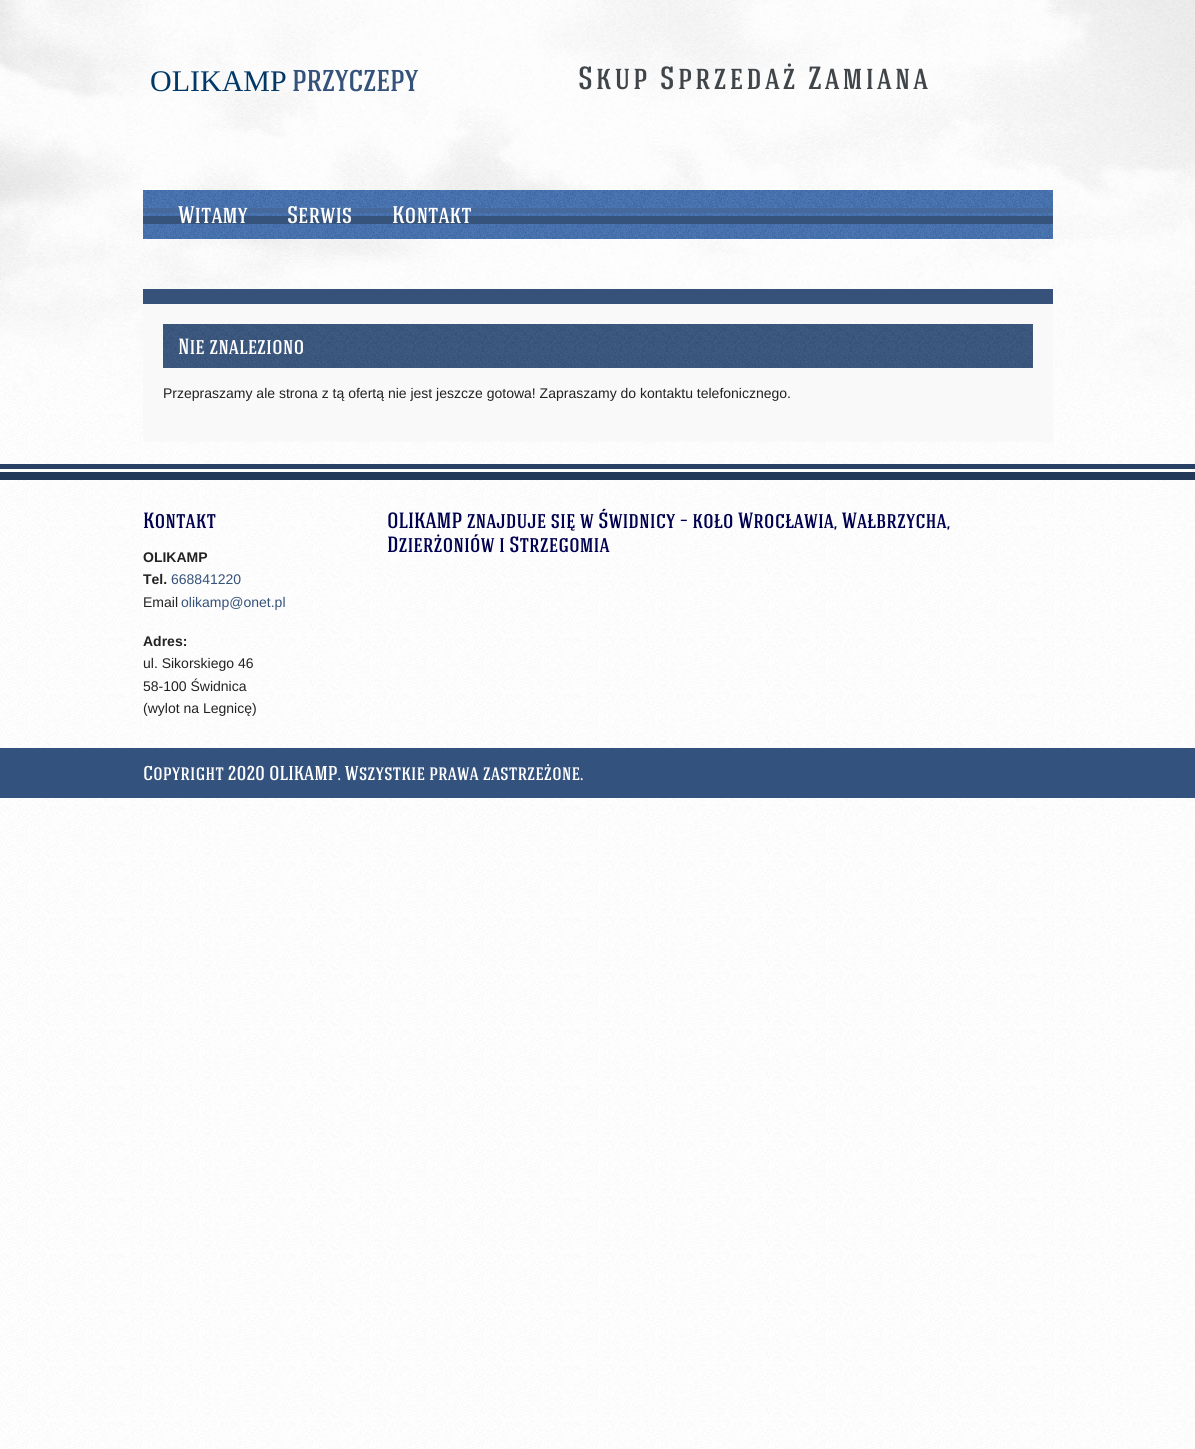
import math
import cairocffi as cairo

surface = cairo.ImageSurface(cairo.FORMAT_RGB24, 1195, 1449)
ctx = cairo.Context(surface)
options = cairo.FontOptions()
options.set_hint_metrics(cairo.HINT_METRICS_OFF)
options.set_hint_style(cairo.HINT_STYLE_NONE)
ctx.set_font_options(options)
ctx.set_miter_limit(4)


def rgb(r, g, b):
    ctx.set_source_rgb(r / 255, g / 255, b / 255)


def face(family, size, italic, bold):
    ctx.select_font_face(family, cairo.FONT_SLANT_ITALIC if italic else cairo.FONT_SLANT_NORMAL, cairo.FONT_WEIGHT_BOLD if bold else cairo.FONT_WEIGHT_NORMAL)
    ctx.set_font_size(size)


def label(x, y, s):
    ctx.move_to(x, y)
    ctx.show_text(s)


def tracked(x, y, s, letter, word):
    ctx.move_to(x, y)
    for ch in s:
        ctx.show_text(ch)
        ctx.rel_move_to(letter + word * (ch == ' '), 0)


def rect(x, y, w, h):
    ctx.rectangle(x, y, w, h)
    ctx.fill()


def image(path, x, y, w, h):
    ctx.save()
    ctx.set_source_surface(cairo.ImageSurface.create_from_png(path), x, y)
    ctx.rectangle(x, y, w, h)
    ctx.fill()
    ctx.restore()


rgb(255, 255, 255)
ctx.paint()
image('image0.png', 0, 0, 1195, 1449)
face('Liberation Serif', 30, 0, 0)
rgb(1, 56, 103)
label(150, 91, 'OLIKAMP')
face('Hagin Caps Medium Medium', 30, 0, 0)
rgb(53, 82, 123)
label(292, 91, 'PRZYCZEPY')
face('Hagin Caps Medium Medium', 32, 0, 0)
rgb(64, 69, 74)
tracked(578, 89, 'Skup Sprzedaż Zamiana', 3, 0)
image('image1.png', 143, 190, 910, 49)
face('Hagin Caps Medium Medium', 24, 0, 0)
rgb(254, 254, 255)
label(178, 223, 'Witamy')
label(287, 223, 'Serwis')
label(392, 223, 'Kontakt')
rgb(249, 249, 249)
rect(143, 304, 910, 138)
rgb(54, 82, 123)
rect(143, 289, 910, 15)
image('image2.png', 163, 324, 870, 44)
face('Hagin Caps Medium Medium', 22, 0, 0)
rgb(254, 254, 255)
label(178, 354, 'Nie znaleziono')
face('Liberation Sans', 14, 0, 0)
rgb(34, 34, 34)
label(163, 398, 'Przepraszamy ale strona z tą ofertą nie jest jeszcze gotowa! Zapraszamy do kontaktu telefonicznego.')
image('image3.png', 0, 464, 1195, 16)
face('Hagin Caps Medium Medium', 22, 0, 0)
rgb(0, 0, 80)
label(143, 528, 'Kontakt')
face('Liberation Sans', 14, 0, 1)
rgb(34, 34, 34)
label(143, 562, 'OLIKAMP')
label(143, 584, 'Tel.')
face('Liberation Sans', 14, 0, 0)
rgb(53, 82, 123)
label(171, 584, '668841220')
rgb(34, 34, 34)
label(143, 607, 'Email')
rgb(53, 82, 123)
label(181, 607, 'olikamp@onet.pl')
face('Liberation Sans', 14, 0, 1)
rgb(34, 34, 34)
label(143, 646, 'Adres:')
face('Liberation Sans', 14, 0, 0)
label(143, 668, 'ul. Sikorskiego 46')
label(143, 691, '58-100 Świdnica')
label(143, 713, '(wylot na Legnicę)')
face('Hagin Caps Medium Medium', 22, 0, 0)
rgb(0, 0, 80)
label(387, 528, 'OLIKAMP znajduje się w Świdnicy – koło Wrocławia, Wałbrzycha,')
label(387, 552, 'Dzierżoniów i Strzegomia')
rgb(51, 82, 126)
rect(0, 748, 1195, 50)
face('Hagin Caps Medium Medium', 20, 0, 0)
rgb(254, 254, 255)
label(143, 780, 'Copyright 2020 OLIKAMP. Wszystkie prawa zastrzeżone.')
surface.write_to_png('render.png')
